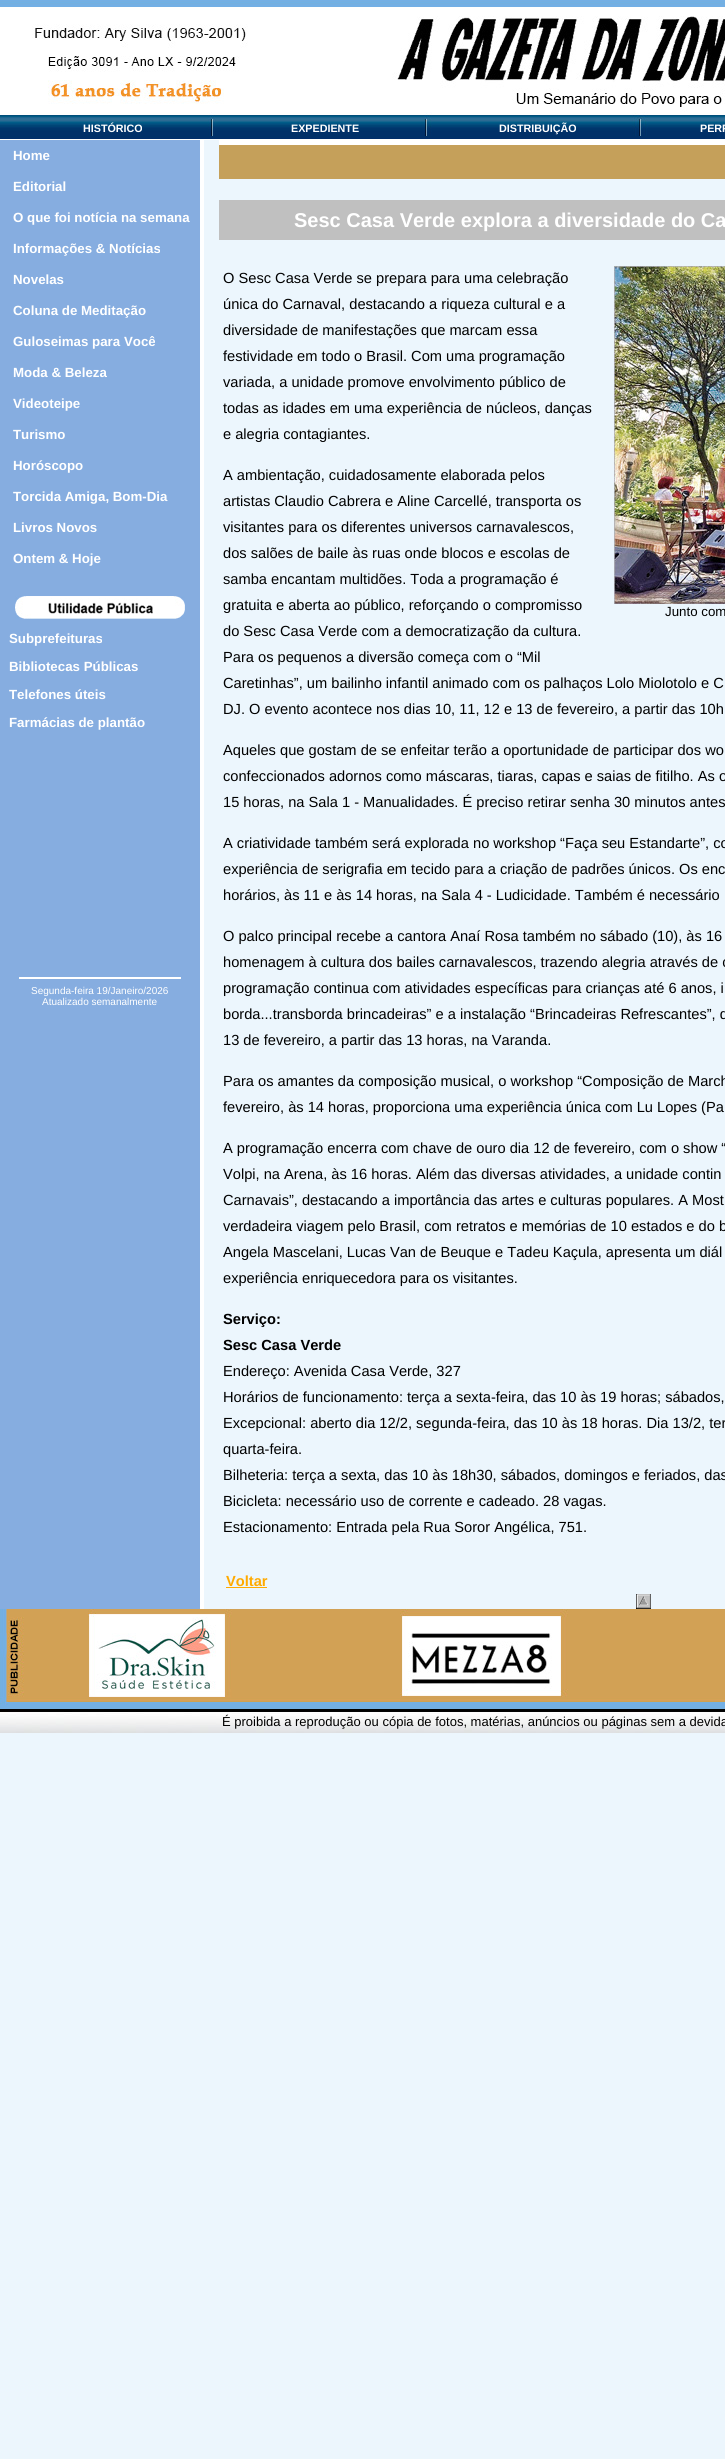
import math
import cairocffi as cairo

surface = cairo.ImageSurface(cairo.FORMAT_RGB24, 725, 2459)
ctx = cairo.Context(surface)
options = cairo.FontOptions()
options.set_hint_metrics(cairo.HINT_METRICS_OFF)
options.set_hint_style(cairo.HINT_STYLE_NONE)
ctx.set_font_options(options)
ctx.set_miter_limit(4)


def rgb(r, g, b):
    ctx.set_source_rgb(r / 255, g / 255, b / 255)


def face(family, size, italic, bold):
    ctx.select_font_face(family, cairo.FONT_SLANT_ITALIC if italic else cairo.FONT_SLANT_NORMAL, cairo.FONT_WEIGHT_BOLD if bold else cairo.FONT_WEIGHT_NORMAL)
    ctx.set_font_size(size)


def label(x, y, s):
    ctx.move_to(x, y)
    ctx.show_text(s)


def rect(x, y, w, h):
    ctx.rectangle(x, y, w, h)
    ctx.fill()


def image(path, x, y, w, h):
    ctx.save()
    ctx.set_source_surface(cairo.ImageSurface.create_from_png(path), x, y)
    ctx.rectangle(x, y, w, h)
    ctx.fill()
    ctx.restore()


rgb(236, 246, 253)
ctx.paint()
image('image0.png', 0, 0, 725, 140)
face('Liberation Sans', 10.75, 0, 1)
rgb(255, 255, 255)
label(83, 132, 'HISTÓRICO')
label(291, 132, 'EXPEDIENTE')
label(499, 132, 'DISTRIBUIÇÃO')
label(700, 132, 'PERF')
rgb(134, 173, 224)
rect(0, 140, 200, 1469)
face('Liberation Sans', 13.3, 0, 1)
rgb(255, 255, 255)
label(13, 160, 'Home')
label(13, 191, 'Editorial')
label(13, 222, 'O que foi notícia na semana')
label(13, 253, 'Informações & Notícias')
label(13, 284, 'Novelas')
label(13, 315, 'Coluna de Meditação')
label(13, 346, 'Guloseimas para Você')
label(13, 377, 'Moda & Beleza')
label(13, 408, 'Videoteipe')
label(13, 439, 'Turismo')
label(13, 470, 'Horóscopo')
label(13, 501, 'Torcida Amiga, Bom-Dia')
label(13, 532, 'Livros Novos')
label(13, 563, 'Ontem & Hoje')
image('image1.png', 15, 596, 170, 23)
label(9, 643, 'Subprefeituras')
label(9, 671, 'Bibliotecas Públicas')
label(9, 699, 'Telefones úteis')
label(9, 727, 'Farmácias de plantão')
rect(19, 977, 162, 2)
face('Liberation Sans', 10, 0, 0)
label(31, 994, 'Segunda-feira 19/Janeiro/2026')
label(42, 1005, 'Atualizado semanalmente')
rect(200, 140, 4, 1469)
rgb(197, 160, 90)
rect(219, 145, 506, 34)
rgb(255, 255, 255)
rect(219, 140, 506, 5)
rgb(192, 192, 192)
rect(219, 200, 506, 40)
face('Liberation Sans', 20, 0, 1)
rgb(255, 255, 255)
label(294, 227, 'Sesc Casa Verde explora a diversidade do Ca')
face('Liberation Sans', 14.65, 0, 0)
rgb(0, 0, 0)
label(223, 283, 'O Sesc Casa Verde se prepara para uma celebração')
label(223, 309, 'única do Carnaval, destacando a riqueza cultural e a')
label(223, 335, 'diversidade de manifestações que marcam essa')
label(223, 361, 'festividade em todo o Brasil. Com uma programação')
label(223, 387, 'variada, a unidade promove envolvimento público de')
label(223, 413, 'todas as idades em uma experiência de núcleos, danças')
label(223, 439, 'e alegria contagiantes.')
label(223, 480, 'A ambientação, cuidadosamente elaborada pelos')
label(223, 506, 'artistas Claudio Cabrera e Aline Carcellé, transporta os')
label(223, 532, 'visitantes para os diferentes universos carnavalescos,')
label(223, 558, 'dos salões de baile às ruas onde blocos e escolas de')
label(223, 584, 'samba encantam multidões. Toda a programação é')
label(223, 610, 'gratuita e aberta ao público, reforçando o compromisso')
image('image2.png', 614, 266, 111, 338)
face('Liberation Sans', 13.3, 0, 0)
label(665, 616, 'Junto com')
face('Liberation Sans', 14.65, 0, 0)
label(223, 636, 'do Sesc Casa Verde com a democratização da cultura.')
label(223, 662, 'Para os pequenos a diversão começa com o “Mil')
label(223, 688, 'Caretinhas”, um bailinho infantil animado com os palhaços Lolo Miolotolo e C')
label(223, 714, 'DJ. O evento acontece nos dias 10, 11, 12 e 13 de fevereiro, a partir das 10h')
label(223, 755, 'Aqueles que gostam de se enfeitar terão a oportunidade de participar dos wo')
label(223, 781, 'confeccionados adornos como máscaras, tiaras, capas e saias de fitilho. As o')
label(223, 807, '15 horas, na Sala 1 - Manualidades. É preciso retirar senha 30 minutos antes')
label(223, 848, 'A criatividade também será explorada no workshop “Faça seu Estandarte”, co')
label(223, 874, 'experiência de serigrafia em tecido para a criação de padrões únicos. Os enc')
label(223, 900, 'horários, às 11 e às 14 horas, na Sala 4 - Ludicidade. Também é necessário')
label(223, 941, 'O palco principal recebe a cantora Anaí Rosa também no sábado (10), às 16')
label(223, 967, 'homenagem à cultura dos bailes carnavalescos, trazendo alegria através de c')
label(223, 993, 'programação continua com atividades específicas para crianças até 6 anos, i')
label(223, 1019, 'borda...transborda brincadeiras” e a instalação “Brincadeiras Refrescantes”, q')
label(223, 1045, '13 de fevereiro, a partir das 13 horas, na Varanda.')
label(223, 1086, 'Para os amantes da composição musical, o workshop “Composição de March')
label(223, 1112, 'fevereiro, às 14 horas, proporciona uma experiência única com Lu Lopes (Pa')
label(223, 1153, 'A programação encerra com chave de ouro dia 12 de fevereiro, com o show “')
label(223, 1179, 'Volpi, na Arena, às 16 horas. Além das diversas atividades, a unidade contin')
label(223, 1205, 'Carnavais”, destacando a importância das artes e culturas populares. A Most')
label(223, 1231, 'verdadeira viagem pelo Brasil, com retratos e memórias de 10 estados e do b')
label(223, 1257, 'Angela Mascelani, Lucas Van de Beuque e Tadeu Kaçula, apresenta um diál')
label(223, 1283, 'experiência enriquecedora para os visitantes.')
face('Liberation Sans', 14.65, 0, 1)
label(223, 1324, 'Serviço:')
label(223, 1350, 'Sesc Casa Verde')
face('Liberation Sans', 14.65, 0, 0)
label(223, 1376, 'Endereço: Avenida Casa Verde, 327')
label(223, 1402, 'Horários de funcionamento: terça a sexta-feira, das 10 às 19 horas; sábados,')
label(223, 1428, 'Excepcional: aberto dia 12/2, segunda-feira, das 10 às 18 horas. Dia 13/2, ter')
label(223, 1454, 'quarta-feira.')
label(223, 1480, 'Bilheteria: terça a sexta, das 10 às 18h30, sábados, domingos e feriados, das')
label(223, 1506, 'Bicicleta: necessário uso de corrente e cadeado. 28 vagas.')
label(223, 1532, 'Estacionamento: Entrada pela Rua Soror Angélica, 751.')
face('Liberation Sans', 14.65, 0, 1)
rgb(255, 170, 0)
label(226, 1586, 'Voltar')
rect(226, 1587, 41, 1)
image('image3.png', 636, 1594, 15, 15)
image('image4.png', 0, 1609, 725, 100)
image('image5.png', 0, 1709, 725, 24)
face('Liberation Sans', 13, 0, 0)
rgb(0, 0, 0)
label(222, 1726, 'É proibida a reprodução ou cópia de fotos, matérias, anúncios ou páginas sem a devida')
surface.write_to_png('render.png')
